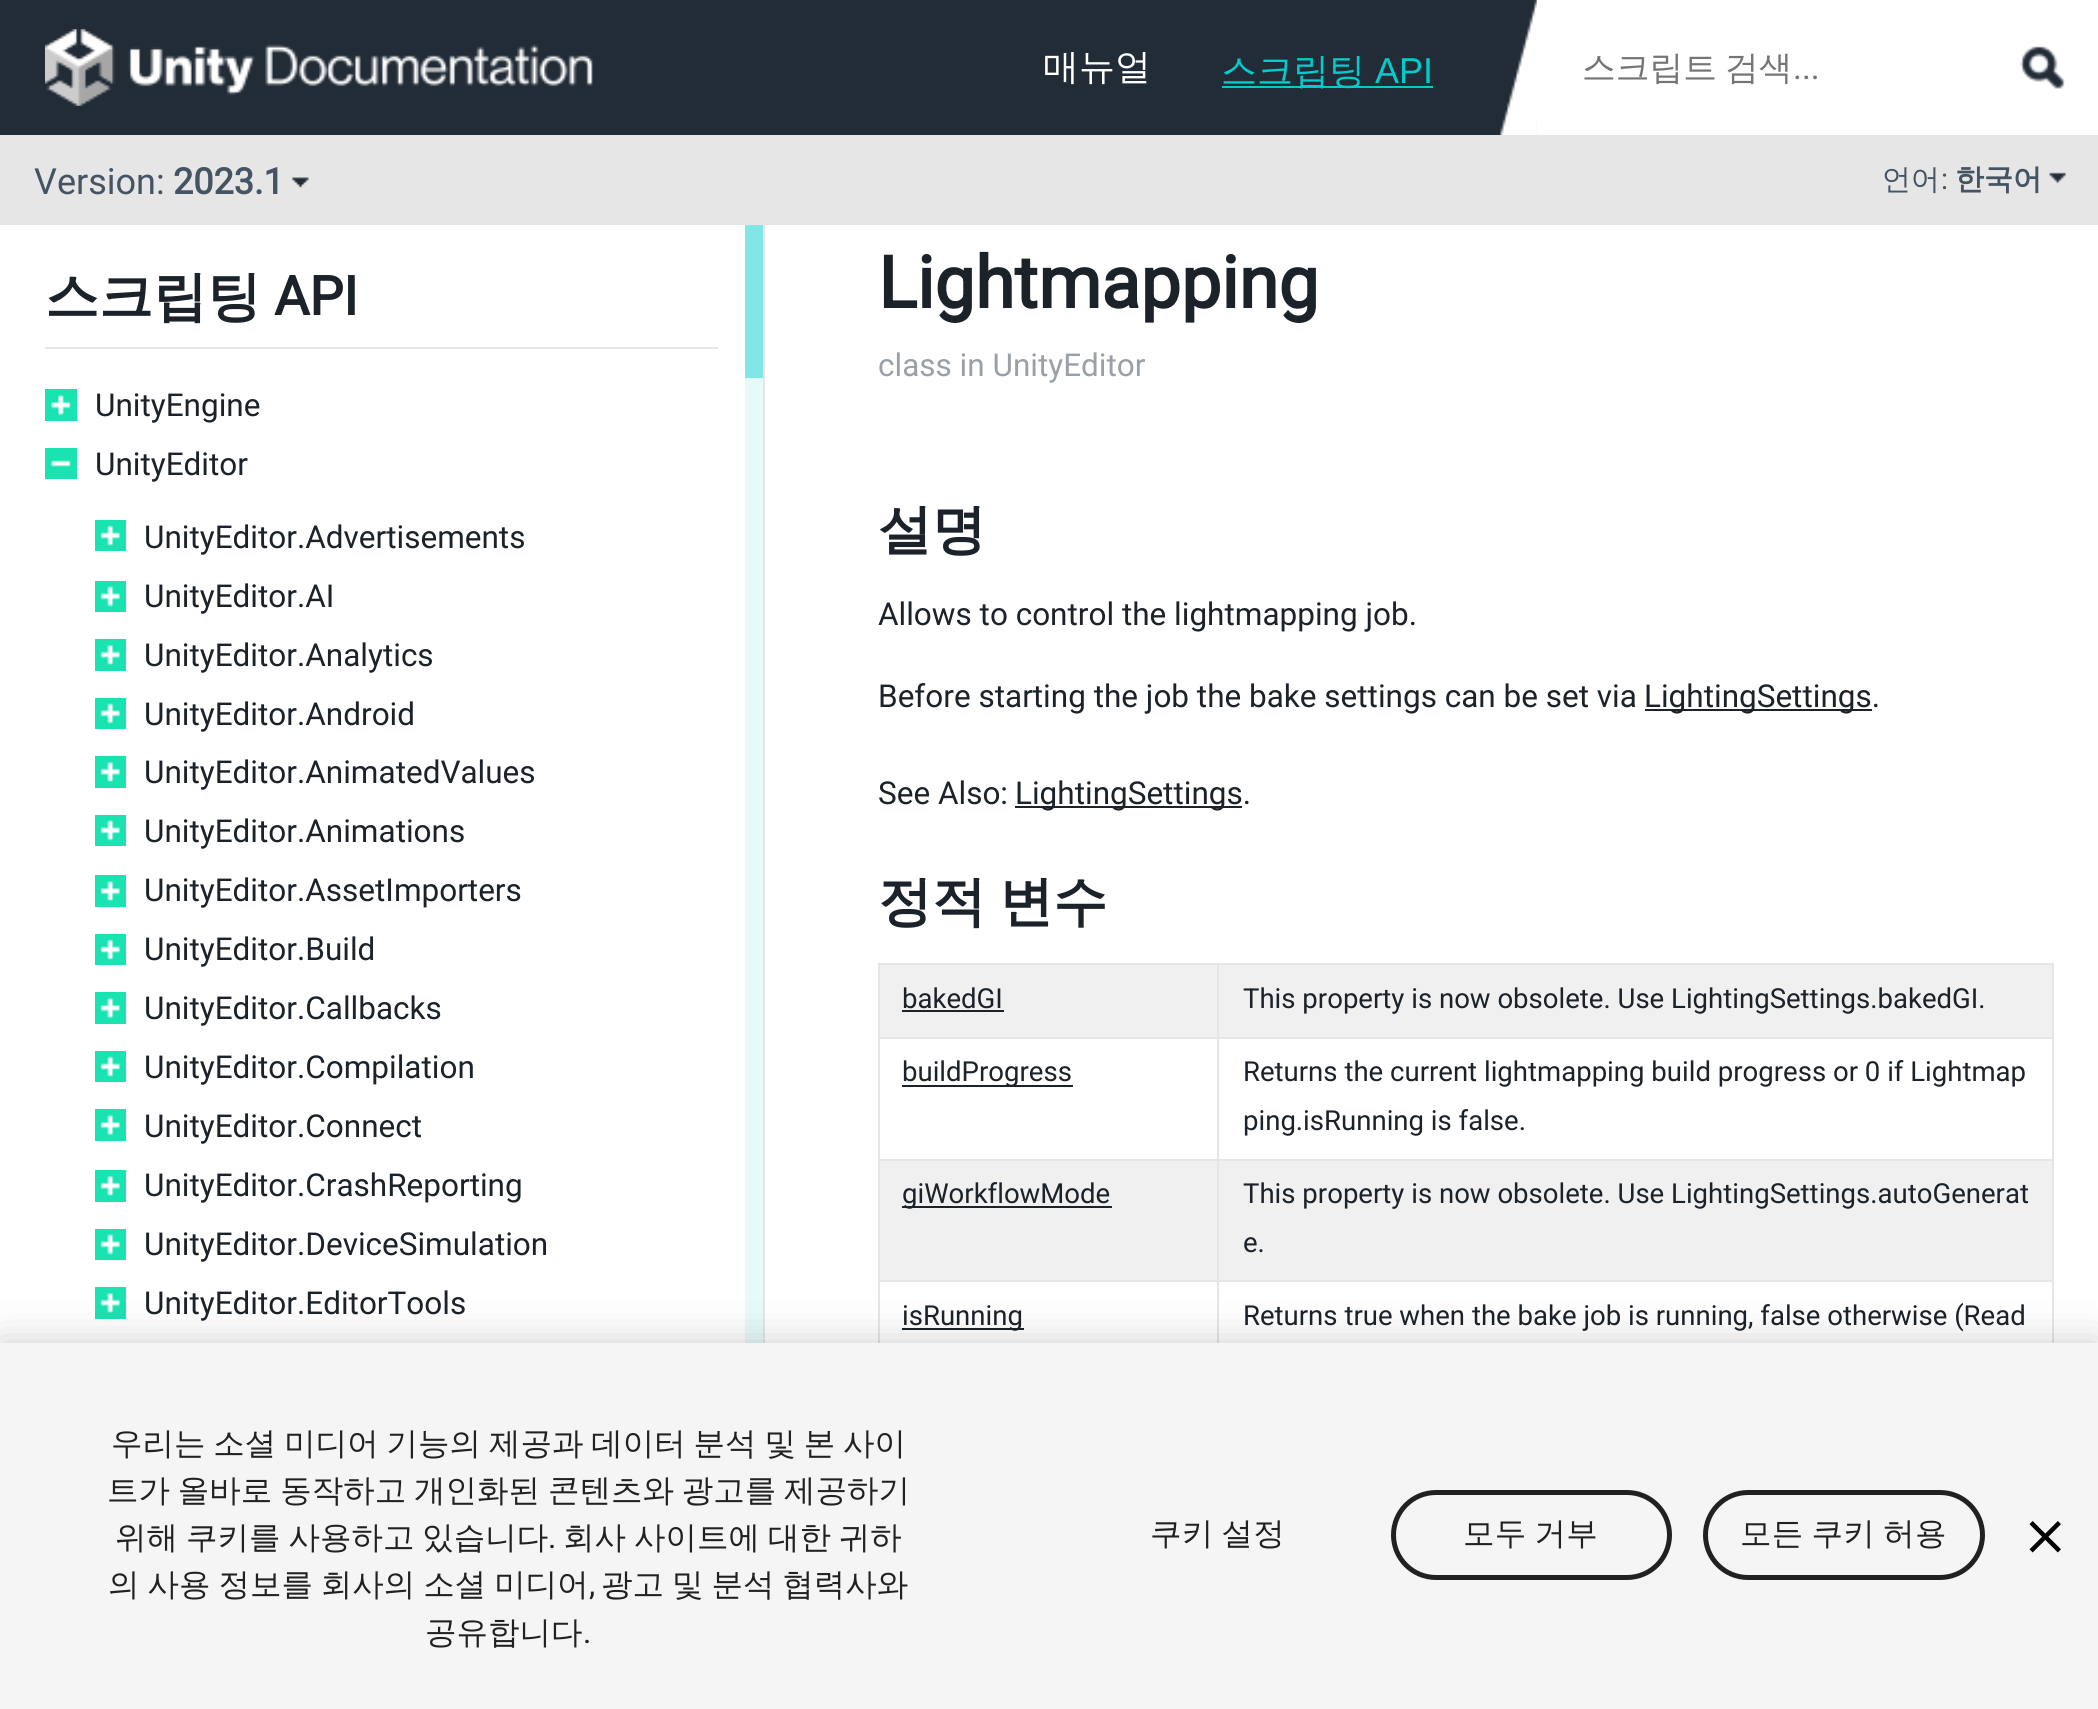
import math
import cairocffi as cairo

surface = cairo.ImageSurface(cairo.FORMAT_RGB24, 2098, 1709)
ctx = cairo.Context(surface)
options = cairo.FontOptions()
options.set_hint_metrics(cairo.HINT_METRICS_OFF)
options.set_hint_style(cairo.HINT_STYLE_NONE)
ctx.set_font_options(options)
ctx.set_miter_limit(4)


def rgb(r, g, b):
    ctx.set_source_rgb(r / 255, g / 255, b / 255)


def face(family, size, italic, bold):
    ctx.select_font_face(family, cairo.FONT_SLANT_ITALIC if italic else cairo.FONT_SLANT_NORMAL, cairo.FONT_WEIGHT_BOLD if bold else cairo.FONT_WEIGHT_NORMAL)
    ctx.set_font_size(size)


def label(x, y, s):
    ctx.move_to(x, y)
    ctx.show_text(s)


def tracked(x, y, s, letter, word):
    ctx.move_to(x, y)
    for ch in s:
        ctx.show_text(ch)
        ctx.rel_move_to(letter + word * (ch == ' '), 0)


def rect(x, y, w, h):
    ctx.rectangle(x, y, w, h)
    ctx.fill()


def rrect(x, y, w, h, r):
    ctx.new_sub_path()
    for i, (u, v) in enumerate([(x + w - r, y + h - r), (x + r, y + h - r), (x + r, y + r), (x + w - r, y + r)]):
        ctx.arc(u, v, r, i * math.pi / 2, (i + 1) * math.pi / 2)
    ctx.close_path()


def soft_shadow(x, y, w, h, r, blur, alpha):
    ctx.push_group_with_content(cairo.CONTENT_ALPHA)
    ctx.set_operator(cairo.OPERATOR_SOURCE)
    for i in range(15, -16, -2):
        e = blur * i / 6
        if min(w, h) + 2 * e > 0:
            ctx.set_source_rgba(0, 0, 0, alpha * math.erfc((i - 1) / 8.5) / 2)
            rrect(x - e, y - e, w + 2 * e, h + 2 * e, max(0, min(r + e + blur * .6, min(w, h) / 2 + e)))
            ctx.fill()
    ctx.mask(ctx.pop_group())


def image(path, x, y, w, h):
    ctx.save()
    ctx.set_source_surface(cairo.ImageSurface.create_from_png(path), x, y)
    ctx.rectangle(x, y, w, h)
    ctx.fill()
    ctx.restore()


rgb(255, 255, 255)
ctx.paint()
rgb(34, 44, 55)
rect(0, 0, 1537, 135)
image('image0.png', 45, 29, 548, 77)
face('WenQuanYi Zen Hei Medium', 36, 0, 0)
rgb(255, 255, 255)
label(1043, 79, '매뉴얼')
rgb(0, 204, 204)
label(1221, 83, '스크립팅')
face('Liberation Sans', 36, 0, 0)
label(1375, 83, 'API')
rect(1222, 86, 211, 2)
image('image1.png', 1500, 0, 37, 135)
face('WenQuanYi Zen Hei Medium', 33.75, 0, 0)
rgb(117, 117, 117)
tracked(1582, 79, '스크립트 검색', 0, -2)
face('Roboto', 33.75, 0, 0)
label(1793, 79, '...')
image('image2.png', 2020, 46, 45, 43)
rgb(230, 230, 230)
rect(0, 135, 2098, 90)
face('Roboto', 36, 0, 0)
rgb(69, 84, 99)
label(34, 194, 'Version:')
face('Roboto', 36, 0, 1)
label(173, 194, '2023.1')
image('image3.png', 292, 177, 17, 11)
face('WenQuanYi Zen Hei Medium', 29, 0, 0)
label(1882, 189, '언어')
face('Roboto', 29, 0, 0)
label(1941, 189, ':')
face('WenQuanYi Zen Hei', 29, 0, 1)
label(1955, 189, '한국어')
image('image4.png', 2049, 172, 18, 12)
rgb(230, 230, 230)
rect(763, 225, 2, 1118)
rect(45, 347, 673, 2)
face('WenQuanYi Zen Hei', 54, 0, 1)
rgb(27, 34, 41)
label(45, 315, '스크립팅')
face('Roboto', 54, 0, 1)
label(274, 315, 'API')
rgb(25, 227, 177)
rect(45, 389, 32, 32)
image('image5.png', 51, 395, 20, 21)
face('Roboto', 31.5, 0, 0)
rgb(27, 34, 41)
label(95, 416, 'UnityEngine')
rgb(25, 227, 177)
rect(45, 448, 32, 31)
image('image6.png', 51, 460, 20, 7)
rgb(27, 34, 41)
label(95, 475, 'UnityEditor')
rgb(25, 227, 177)
rect(95, 520, 31, 31)
image('image7.png', 100, 525, 20, 21)
rgb(27, 34, 41)
label(144, 548, 'UnityEditor.Advertisements')
rgb(25, 227, 177)
rect(95, 581, 31, 31)
image('image8.png', 100, 586, 20, 21)
rgb(27, 34, 41)
label(144, 607, 'UnityEditor.AI')
rgb(25, 227, 177)
rect(95, 639, 31, 32)
image('image9.png', 100, 645, 20, 20)
rgb(27, 34, 41)
label(144, 666, 'UnityEditor.Analytics')
rgb(25, 227, 177)
rect(95, 698, 31, 31)
image('image8.png', 100, 703, 20, 21)
rgb(27, 34, 41)
label(144, 725, 'UnityEditor.Android')
rgb(25, 227, 177)
rect(95, 756, 31, 32)
image('image9.png', 100, 762, 20, 20)
rgb(27, 34, 41)
label(144, 783, 'UnityEditor.AnimatedValues')
rgb(25, 227, 177)
rect(95, 815, 31, 31)
image('image8.png', 100, 820, 20, 21)
rgb(27, 34, 41)
label(144, 842, 'UnityEditor.Animations')
rgb(25, 227, 177)
rect(95, 875, 31, 32)
image('image10.png', 100, 881, 20, 21)
rgb(27, 34, 41)
label(144, 901, 'UnityEditor.AssetImporters')
rgb(25, 227, 177)
rect(95, 934, 31, 31)
image('image7.png', 100, 939, 20, 21)
rgb(27, 34, 41)
label(144, 960, 'UnityEditor.Build')
rgb(25, 227, 177)
rect(95, 992, 31, 32)
image('image11.png', 100, 998, 20, 21)
rgb(27, 34, 41)
label(144, 1019, 'UnityEditor.Callbacks')
rgb(25, 227, 177)
rect(95, 1051, 31, 31)
image('image7.png', 100, 1056, 20, 21)
rgb(27, 34, 41)
label(144, 1078, 'UnityEditor.Compilation')
rgb(25, 227, 177)
rect(95, 1109, 31, 32)
image('image11.png', 100, 1115, 20, 21)
rgb(27, 34, 41)
label(144, 1137, 'UnityEditor.Connect')
rgb(25, 227, 177)
rect(95, 1170, 31, 32)
image('image12.png', 100, 1176, 20, 20)
rgb(27, 34, 41)
label(144, 1196, 'UnityEditor.CrashReporting')
rgb(25, 227, 177)
rect(95, 1229, 31, 31)
image('image8.png', 100, 1234, 20, 21)
rgb(27, 34, 41)
label(144, 1255, 'UnityEditor.DeviceSimulation')
rgb(25, 227, 177)
rect(95, 1287, 31, 32)
image('image9.png', 100, 1293, 20, 20)
rgb(27, 34, 41)
label(144, 1314, 'UnityEditor.EditorTools')
rgb(128, 230, 230)
rect(745, 225, 18, 153)
rgb(230, 250, 250)
rect(745, 378, 18, 965)
face('Roboto', 72, 0, 1)
rgb(27, 34, 41)
label(878, 308, 'Lightmapping')
face('Roboto', 31.5, 0, 0)
rgb(153, 160, 167)
label(878, 376, 'class in UnityEditor')
face('WenQuanYi Zen Hei', 54, 0, 1)
rgb(27, 34, 41)
label(878, 548, '설명')
face('Roboto', 31.5, 0, 0)
label(878, 625, 'Allows to control the lightmapping job.')
label(878, 707, 'Before starting the job the bake settings can be set via')
rect(1645, 709, 227, 2)
label(1644, 707, 'LightingSettings.')
label(878, 804, 'See Also:')
rect(1015, 806, 227, 2)
label(1015, 804, 'LightingSettings.')
face('WenQuanYi Zen Hei', 54, 0, 1)
tracked(878, 920, '정적 변수', 0, -3)
rgb(240, 240, 240)
rect(880, 965, 1172, 72)
rgb(230, 230, 230)
rect(1217, 963, 837, 2)
rect(1217, 1037, 837, 2)
rect(1217, 1159, 837, 2)
rgb(240, 240, 240)
rect(880, 1161, 1172, 119)
rgb(230, 230, 230)
rect(1217, 1280, 837, 2)
rect(1217, 1280, 2, 63)
rect(878, 1280, 342, 2)
rect(1217, 1159, 2, 124)
rect(878, 1159, 342, 2)
rect(1217, 1037, 2, 124)
rect(878, 1037, 342, 2)
rect(1217, 963, 2, 77)
rect(878, 963, 342, 2)
rect(878, 1280, 2, 63)
rect(878, 1159, 2, 124)
rect(878, 1037, 2, 124)
rect(878, 963, 2, 77)
face('Roboto', 27.55, 0, 0)
rgb(27, 34, 41)
label(902, 1008, 'bakedGI')
rect(902, 1010, 102, 2)
rgb(230, 230, 230)
rect(2052, 1280, 2, 63)
rect(2052, 1159, 2, 124)
rect(2052, 1037, 2, 124)
rect(2052, 963, 2, 77)
rgb(27, 34, 41)
label(1243, 1008, 'This property is now obsolete. Use LightingSettings.bakedGI.')
rect(902, 1085, 171, 2)
label(902, 1081, 'buildProgress')
label(1243, 1081, 'Returns the current lightmapping build progress or 0 if Lightmap')
label(1243, 1130, 'ping.isRunning is false.')
rect(902, 1206, 210, 2)
label(902, 1203, 'giWorkflowMode')
label(1243, 1203, 'This property is now obsolete. Use LightingSettings.autoGenerat')
label(1243, 1252, 'e.')
rect(902, 1328, 122, 2)
label(902, 1325, 'isRunning')
label(1243, 1325, 'Returns true when the bake job is running, false otherwise (Read')
rgb(0, 0, 0)
soft_shadow(0, 1343, 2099, 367, 0, 20, 0.2)
rgb(245, 245, 245)
rect(0, 1343, 2098, 366)
face('WenQuanYi Zen Hei Medium', 31.5, 0, 0)
rgb(33, 33, 33)
tracked(111, 1454, '우리는 소셜 미디어 기능의 제공과 데이터 분석 및 본 사이', 0, -1.6)
tracked(107, 1501, '트가 올바로 동작하고 개인화된 콘텐츠와 광고를 제공하기', 0, -1.6)
tracked(115, 1548, '위해 쿠키를 사용하고 있습니다', 0, -1.5)
face('Roboto', 31.5, 0, 0)
label(548, 1548, '.')
face('WenQuanYi Zen Hei Medium', 31.5, 0, 0)
tracked(563, 1548, '회사 사이트에 대한 귀하', 0, -1.5)
tracked(108, 1595, '의 사용 정보를 회사의 소셜 미디어', 0, -1.5)
face('Roboto', 31.5, 0, 0)
label(589, 1595, ',')
face('WenQuanYi Zen Hei Medium', 31.5, 0, 0)
tracked(601, 1595, '광고 및 분석 협력사와', 0, -1.5)
label(425, 1643, '공유합니다')
face('Roboto', 31.5, 0, 0)
label(583, 1643, '.')
face('WenQuanYi Zen Hei Medium', 31.5, 0, 0)
tracked(1150, 1544, '쿠키 설정', 0.25, -1.6)
rrect(1393.5, 1492.5, 276, 85, 42.5)
ctx.set_line_width(5)
ctx.stroke()
tracked(1463, 1544, '모두 거부', 0.25, -1.6)
rrect(1705.5, 1492.5, 277, 85, 42.5)
ctx.stroke()
tracked(1740, 1544, '모든 쿠키 허용', 0.25, -1.6)
image('image13.png', 2029, 1521, 32, 32)
surface.write_to_png('render.png')
